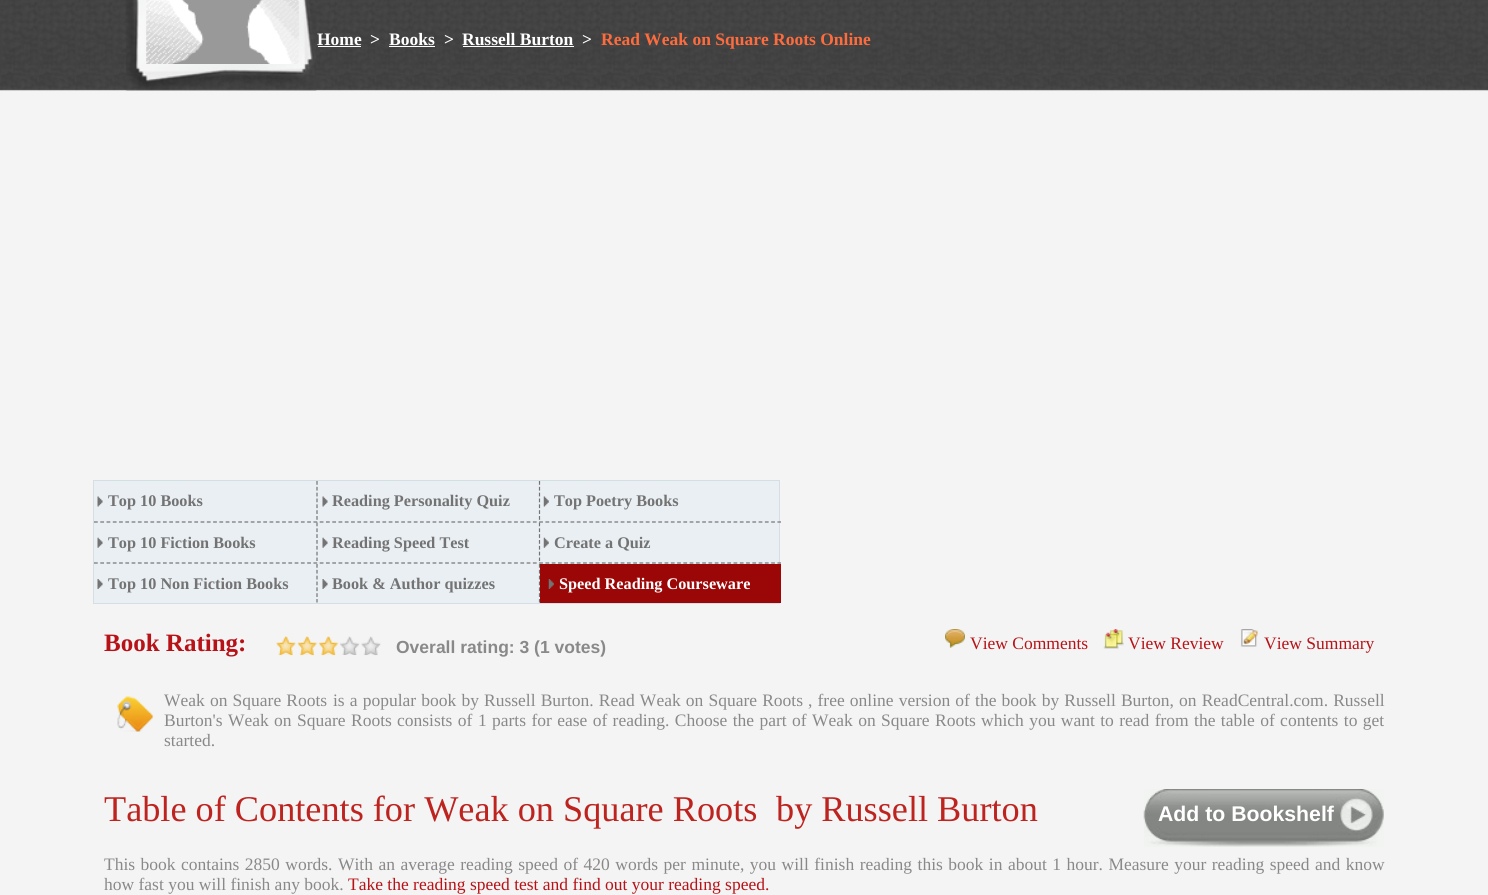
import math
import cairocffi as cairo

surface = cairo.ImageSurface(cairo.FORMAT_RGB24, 1488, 895)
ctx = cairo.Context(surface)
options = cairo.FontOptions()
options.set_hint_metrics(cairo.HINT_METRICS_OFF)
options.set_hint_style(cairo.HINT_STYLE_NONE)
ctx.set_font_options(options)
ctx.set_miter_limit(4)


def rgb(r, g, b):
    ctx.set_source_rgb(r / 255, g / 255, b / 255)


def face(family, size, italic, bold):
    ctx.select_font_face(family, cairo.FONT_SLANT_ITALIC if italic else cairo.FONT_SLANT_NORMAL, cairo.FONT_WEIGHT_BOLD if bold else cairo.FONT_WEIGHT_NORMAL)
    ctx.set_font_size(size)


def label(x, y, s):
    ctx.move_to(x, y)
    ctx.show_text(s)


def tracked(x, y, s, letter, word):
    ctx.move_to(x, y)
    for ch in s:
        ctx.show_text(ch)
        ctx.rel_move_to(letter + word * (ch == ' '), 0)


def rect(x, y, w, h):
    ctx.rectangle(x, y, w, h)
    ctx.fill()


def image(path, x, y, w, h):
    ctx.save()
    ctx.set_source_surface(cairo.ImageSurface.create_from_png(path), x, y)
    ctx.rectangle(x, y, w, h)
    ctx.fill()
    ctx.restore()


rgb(244, 244, 244)
ctx.paint()
image('image0.png', 0, 0, 1488, 91)
image('image1.png', 126, 0, 191, 91)
image('image2.png', 146, 0, 153, 64)
face('Liberation Serif', 17.5, 0, 1)
rgb(255, 255, 255)
label(317, 45, 'Home')
rect(318, 46, 43, 1)
label(370, 45, '>')
label(389, 45, 'Books')
rect(389, 46, 46, 1)
label(444, 45, '>')
label(462, 45, 'Russell Burton')
rect(463, 46, 111, 1)
label(582, 45, '>')
rgb(254, 108, 61)
label(601, 45, 'Read Weak on Square Roots Online')
rgb(233, 239, 243)
ctx.rectangle(93.5, 480.5, 686, 123)
ctx.fill_preserve()
rgb(212, 222, 229)
ctx.set_line_width(1)
ctx.stroke()
ctx.new_path()
ctx.move_to(317, 481)
ctx.line_to(317, 520)
rgb(116, 115, 115)
ctx.set_line_width(1.2)
ctx.set_dash([3.75, 2.09])
ctx.stroke()
image('image3.png', 97, 496, 6, 11)
face('Liberation Serif', 16.25, 0, 1)
label(108, 506, 'Top 10 Books')
ctx.new_path()
ctx.move_to(539.5, 481)
ctx.line_to(539.5, 520)
ctx.stroke()
image('image3.png', 322, 496, 6, 11)
label(332, 506, 'Reading Personality Quiz')
image('image4.png', 543, 496, 6, 11)
label(554, 506, 'Top Poetry Books')
ctx.new_path()
ctx.move_to(94, 522)
ctx.line_to(781, 522)
ctx.set_dash([3.75, 2.52])
ctx.stroke()
ctx.new_path()
ctx.move_to(317, 522.5)
ctx.line_to(317, 561)
ctx.set_dash([3.75, 2.09])
ctx.stroke()
image('image5.png', 97, 537, 6, 11)
label(108, 548, 'Top 10 Fiction Books')
ctx.new_path()
ctx.move_to(539.5, 522.5)
ctx.line_to(539.5, 561)
ctx.stroke()
image('image5.png', 322, 537, 6, 11)
label(332, 548, 'Reading Speed Test')
image('image6.png', 543, 537, 6, 11)
label(554, 548, 'Create a Quiz')
ctx.new_path()
ctx.move_to(94, 563)
ctx.line_to(781, 563)
ctx.set_dash([3.75, 2.52])
ctx.stroke()
ctx.new_path()
ctx.move_to(317, 564)
ctx.line_to(317, 602.5)
ctx.set_dash([3.75, 2.09])
ctx.stroke()
image('image7.png', 97, 579, 6, 10)
label(108, 589, 'Top 10 Non Fiction Books')
ctx.new_path()
ctx.move_to(539.5, 564)
ctx.line_to(539.5, 602.5)
ctx.stroke()
image('image7.png', 322, 579, 6, 10)
label(332, 589, 'Book & Author quizzes')
rgb(155, 7, 7)
rect(540, 564, 241, 39)
image('image8.png', 548, 579, 6, 10)
rgb(255, 255, 255)
label(559, 589, 'Speed Reading Courseware')
face('Liberation Serif', 25, 0, 1)
rgb(183, 18, 23)
label(104, 651, 'Book Rating:')
image('image9.png', 276, 636, 21, 20)
image('image10.png', 297, 636, 21, 20)
image('image11.png', 318, 636, 21, 20)
image('image12.png', 340, 636, 20, 19)
image('image13.png', 361, 636, 20, 20)
face('Liberation Sans', 17.5, 0, 1)
rgb(137, 137, 137)
label(396, 653, 'Overall rating: 3 (1 votes)')
image('image14.png', 945, 629, 20, 19)
face('Liberation Serif', 17.5, 0, 0)
rgb(183, 18, 23)
label(970, 649, 'View Comments')
image('image15.png', 1103, 629, 21, 20)
label(1128, 649, 'View Review')
image('image16.png', 1240, 629, 18, 18)
label(1264, 649, 'View Summary')
image('image17.png', 117, 696, 37, 36)
rgb(137, 137, 137)
tracked(164, 706, 'Weak on Square Roots', 0, 0.75)
tracked(333, 706, 'is a popular book by Russell Burton. Read Weak on Square Roots', 0, 0.75)
tracked(808, 706, ', free online version of the book by Russell Burton, on ReadCentral.com. Russell', 0, 0.75)
tracked(164, 726, 'Burton\'s Weak on Square Roots', 0, 1)
tracked(397, 726, 'consists of', 0, 1)
label(478, 726, '1')
tracked(492, 726, 'parts for ease of reading. Choose the part of Weak on Square Roots', 0, 1)
tracked(981, 726, 'which you want to read from the table of contents to get', 0, 1)
label(164, 746, 'started.')
face('Liberation Serif', 36.25, 0, 0)
rgb(189, 36, 32)
label(104, 821, 'Table of Contents for Weak on Square Roots')
label(776, 821, 'by Russell Burton')
image('image18.png', 1143, 789, 241, 58)
face('Liberation Sans', 21.25, 0, 1)
rgb(255, 255, 255)
label(1158, 821, 'Add to Bookshelf')
face('Liberation Serif', 17.5, 0, 0)
rgb(137, 137, 137)
tracked(104, 870, 'This book contains 2850 words. With an average reading speed of 420 words per minute, you will finish reading this book in about 1 hour. Measure your reading speed and know', 0, 1.1)
label(104, 890, 'how fast you will finish any book.')
rgb(183, 18, 23)
label(348, 890, 'Take the reading speed test and find out your reading speed.')
surface.write_to_png('render.png')
